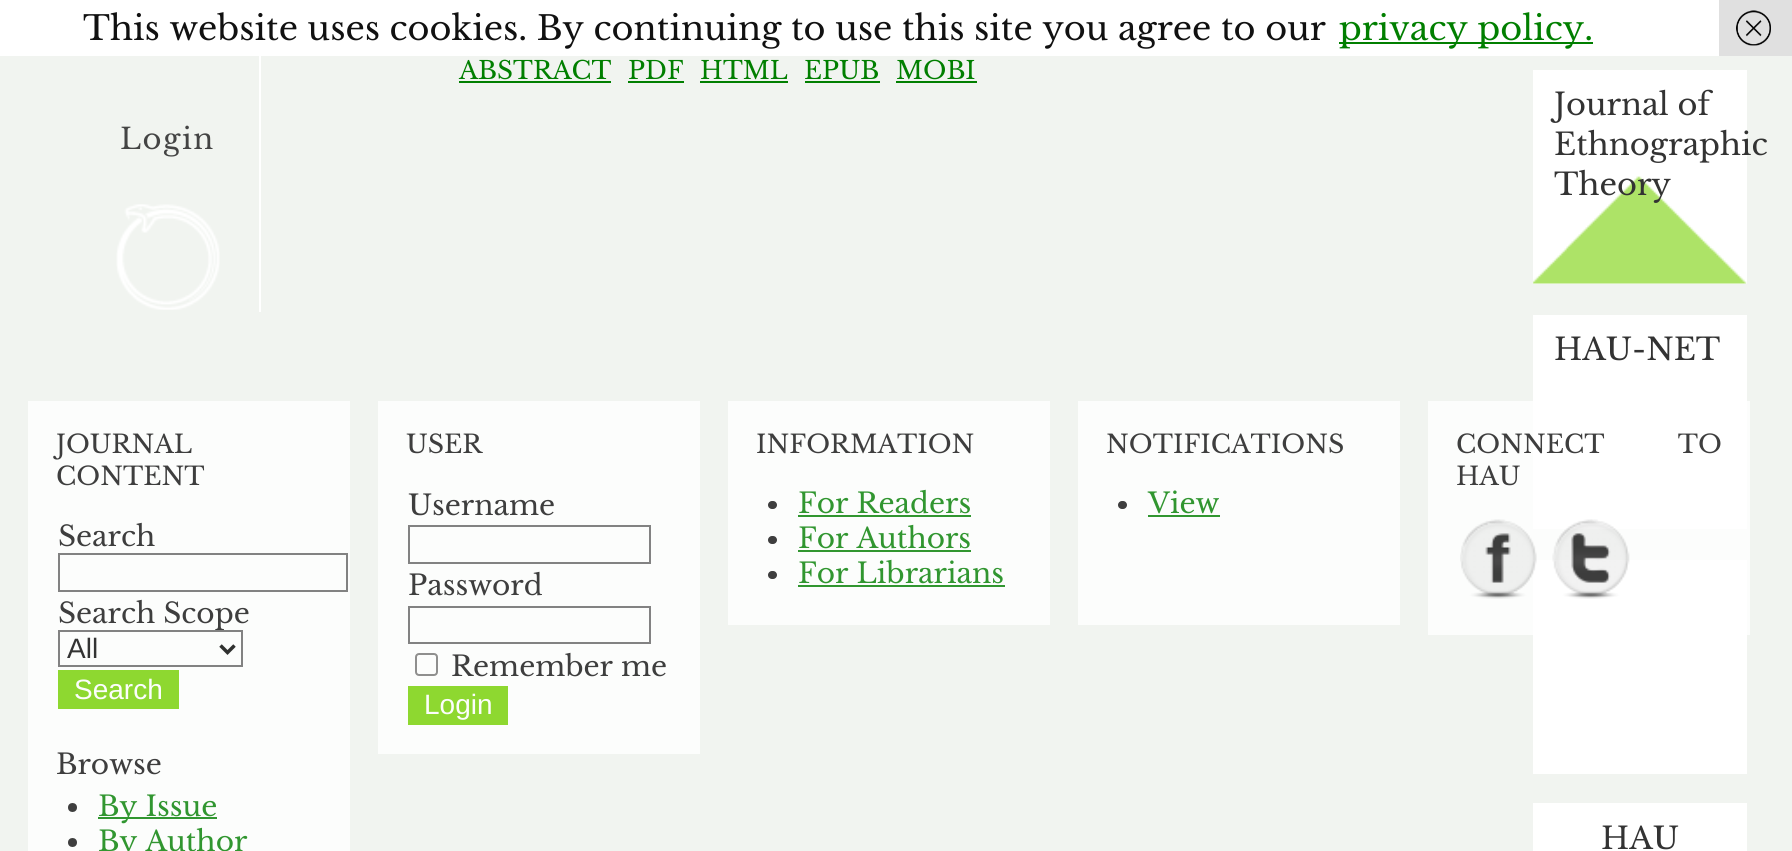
import math
import cairocffi as cairo

surface = cairo.ImageSurface(cairo.FORMAT_RGB24, 1792, 851)
ctx = cairo.Context(surface)
options = cairo.FontOptions()
options.set_hint_metrics(cairo.HINT_METRICS_OFF)
options.set_hint_style(cairo.HINT_STYLE_NONE)
ctx.set_font_options(options)
ctx.set_miter_limit(4)


def rgb(r, g, b):
    ctx.set_source_rgb(r / 255, g / 255, b / 255)


def face(family, size, italic, bold):
    ctx.select_font_face(family, cairo.FONT_SLANT_ITALIC if italic else cairo.FONT_SLANT_NORMAL, cairo.FONT_WEIGHT_BOLD if bold else cairo.FONT_WEIGHT_NORMAL)
    ctx.set_font_size(size)


def label(x, y, s):
    ctx.move_to(x, y)
    ctx.show_text(s)


def tracked(x, y, s, letter, word):
    ctx.move_to(x, y)
    for ch in s:
        ctx.show_text(ch)
        ctx.rel_move_to(letter + word * (ch == ' '), 0)


def rect(x, y, w, h):
    ctx.rectangle(x, y, w, h)
    ctx.fill()


def rrect(x, y, w, h, r):
    ctx.new_sub_path()
    for i, (u, v) in enumerate([(x + w - r, y + h - r), (x + r, y + h - r), (x + r, y + r), (x + w - r, y + r)]):
        ctx.arc(u, v, r, i * math.pi / 2, (i + 1) * math.pi / 2)
    ctx.close_path()


def image(path, x, y, w, h):
    ctx.save()
    ctx.set_source_surface(cairo.ImageSurface.create_from_png(path), x, y)
    ctx.rectangle(x, y, w, h)
    ctx.fill()
    ctx.restore()


rgb(241, 244, 240)
ctx.paint()
rgb(255, 255, 255)
rect(0, 0, 1719, 56)
face('Libre Baskerville', 33.6, 0, 0)
rgb(17, 17, 17)
label(83, 40, 'This website uses cookies. By continuing to use this site you agree to our')
rgb(1, 127, 0)
rect(1339, 42, 254, 2)
label(1339, 40, 'privacy policy.')
rgb(224, 224, 224)
rect(1719, 0, 73, 56)
image('image0.png', 1736, 10, 35, 36)
face('Libre Baskerville', 24.75, 0, 0)
rgb(1, 127, 0)
label(459, 79, 'ABSTRACT')
rect(459, 81, 152, 2)
label(628, 79, 'PDF')
rect(628, 81, 56, 2)
label(700, 79, 'HTML')
rect(700, 81, 88, 2)
label(804, 79, 'EPUB')
rect(805, 81, 75, 2)
label(896, 79, 'MOBI')
rect(896, 81, 81, 2)
rgb(255, 255, 255)
rect(259, 56, 2, 256)
image('image1.png', 116, 204, 104, 106)
face('Libre Baskerville', 29, 0, 0)
rgb(68, 68, 68)
tracked(120, 149, 'Login', 1.5, 0)
rgb(255, 255, 255)
rect(1533, 70, 214, 214)
image('image2.png', 1533, 176, 214, 108)
face('Libre Baskerville', 30.5, 0, 0)
rgb(51, 51, 51)
label(1554, 115, 'Journal of')
label(1554, 155, 'Ethnographic')
label(1554, 195, 'Theory')
rgb(255, 255, 255)
rect(1533, 315, 214, 214)
rgb(51, 51, 51)
label(1554, 360, 'HAU-NET')
rgb(255, 255, 255)
rect(1533, 560, 214, 214)
rect(1533, 803, 214, 48)
rgb(51, 51, 51)
label(1601, 849, 'HAU')
rgb(252, 253, 252)
rect(28, 401, 322, 450)
face('Libre Baskerville', 25.25, 0, 0)
rgb(62, 62, 62)
label(56, 453, 'JOURNAL')
label(56, 485, 'CONTENT')
face('Libre Baskerville', 28, 0, 0)
label(58, 546, 'Search')
ctx.rectangle(59, 554, 288, 37)
rgb(130, 130, 130)
ctx.stroke()
rgb(62, 62, 62)
label(58, 623, 'Search Scope')
ctx.rectangle(59, 631, 183, 35)
rgb(130, 130, 130)
ctx.stroke()
ctx.new_path()
ctx.move_to(220.5, 645.5)
ctx.line_to(227.5, 652.5)
ctx.line_to(234.5, 645.5)
rgb(48, 49, 48)
ctx.set_line_width(3.5)
ctx.stroke()
face('Liberation Sans', 28, 0, 0)
rgb(51, 51, 51)
label(67, 658, 'All')
rgb(142, 216, 48)
rect(58, 670, 121, 39)
rgb(252, 253, 252)
label(74, 699, 'Search')
face('Libre Baskerville', 28, 0, 0)
rgb(62, 62, 62)
label(56, 774, 'Browse')
ctx.new_path()
ctx.arc(72.5, 807.5, 4.5, 0, 2 * math.pi)
ctx.fill()
rgb(49, 150, 48)
rect(98, 817, 119, 2)
label(98, 816, 'By Issue')
rgb(62, 62, 62)
ctx.new_path()
ctx.arc(72.5, 842.5, 4.5, 0, 2 * math.pi)
ctx.fill()
rgb(49, 150, 48)
label(98, 851, 'By Author')
rgb(252, 253, 252)
rect(378, 401, 322, 353)
face('Libre Baskerville', 25.25, 0, 0)
rgb(62, 62, 62)
label(406, 453, 'USER')
face('Libre Baskerville', 28, 0, 0)
label(408, 515, 'Username')
ctx.rectangle(409, 526, 241, 37)
rgb(130, 130, 130)
ctx.set_line_width(2)
ctx.stroke()
rgb(62, 62, 62)
label(408, 595, 'Password')
ctx.rectangle(409, 607, 241, 36)
rgb(130, 130, 130)
ctx.stroke()
rrect(416, 654, 21, 21, 3)
rgb(143, 143, 142)
ctx.stroke()
rgb(62, 62, 62)
label(451, 676, 'Remember me')
rgb(142, 216, 48)
rect(408, 686, 100, 39)
face('Liberation Sans', 28, 0, 0)
rgb(252, 253, 252)
label(424, 714, 'Login')
rect(728, 401, 322, 224)
face('Libre Baskerville', 25.25, 0, 0)
rgb(62, 62, 62)
label(756, 453, 'INFORMATION')
rrect(768, 501, 9, 8, 4)
ctx.fill()
face('Libre Baskerville', 28, 0, 0)
rgb(49, 150, 48)
label(798, 513, 'For Readers')
rect(798, 515, 173, 2)
rgb(62, 62, 62)
rrect(768, 536, 9, 8, 4)
ctx.fill()
rgb(49, 150, 48)
label(798, 548, 'For Authors')
rect(798, 550, 173, 2)
rgb(62, 62, 62)
rrect(768, 571, 9, 8, 4)
ctx.fill()
rgb(49, 150, 48)
label(798, 583, 'For Librarians')
rect(798, 585, 207, 2)
rgb(252, 253, 252)
rect(1078, 401, 322, 224)
face('Libre Baskerville', 25.25, 0, 0)
rgb(62, 62, 62)
label(1106, 453, 'NOTIFICATIONS')
rrect(1118, 501, 9, 8, 4)
ctx.fill()
face('Libre Baskerville', 28, 0, 0)
rgb(49, 150, 48)
label(1148, 513, 'View')
rect(1148, 515, 72, 2)
ctx.set_source_rgba(1, 1, 1, 0.8)
rect(1428, 401, 322, 234)
face('Libre Baskerville', 25.25, 0, 0)
rgb(62, 62, 62)
tracked(1456, 453, 'CONNECT TO', 0, 66)
label(1456, 485, 'HAU')
image('image3.png', 1460, 519, 77, 80)
image('image4.png', 1552, 519, 78, 80)
surface.write_to_png('render.png')
